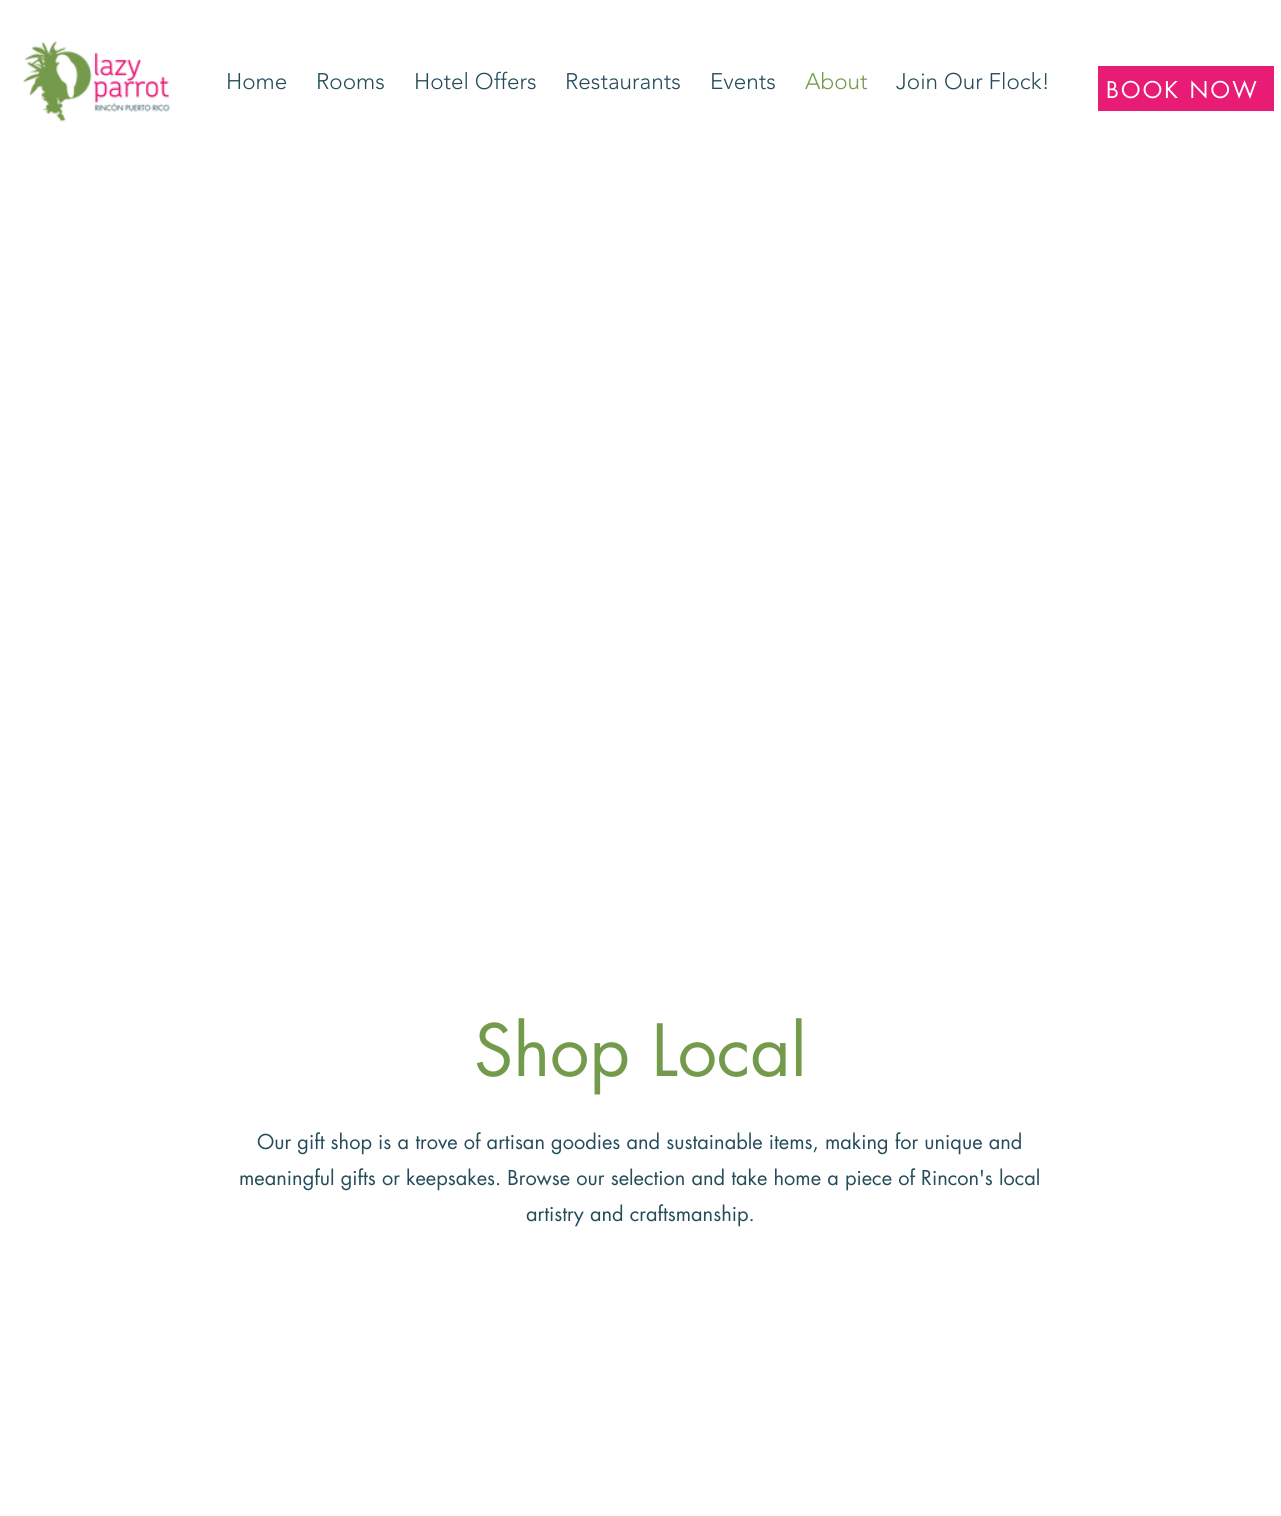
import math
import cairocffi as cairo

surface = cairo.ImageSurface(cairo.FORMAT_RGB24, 1281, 1516)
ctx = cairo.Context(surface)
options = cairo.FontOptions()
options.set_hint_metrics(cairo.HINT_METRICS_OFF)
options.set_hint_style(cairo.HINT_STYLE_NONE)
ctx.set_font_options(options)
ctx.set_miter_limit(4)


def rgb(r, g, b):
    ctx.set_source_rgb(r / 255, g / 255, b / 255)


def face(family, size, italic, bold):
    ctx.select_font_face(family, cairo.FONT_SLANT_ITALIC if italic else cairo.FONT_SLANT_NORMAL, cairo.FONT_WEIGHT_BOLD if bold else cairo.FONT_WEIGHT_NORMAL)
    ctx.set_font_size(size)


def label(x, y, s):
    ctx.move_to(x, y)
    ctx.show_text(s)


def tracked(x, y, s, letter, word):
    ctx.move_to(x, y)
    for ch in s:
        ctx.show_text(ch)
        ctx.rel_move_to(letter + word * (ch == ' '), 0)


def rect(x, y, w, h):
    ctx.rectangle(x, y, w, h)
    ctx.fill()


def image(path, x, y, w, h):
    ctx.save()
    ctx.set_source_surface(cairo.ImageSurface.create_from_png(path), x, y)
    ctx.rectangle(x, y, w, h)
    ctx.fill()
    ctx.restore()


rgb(255, 255, 255)
ctx.paint()
image('image0.png', 22, 41, 149, 81)
face('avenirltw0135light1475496 Light', 22.5, 0, 0)
rgb(36, 76, 90)
label(226, 89, 'Home')
label(316, 89, 'Rooms')
label(414, 89, 'Hotel Offers')
label(565, 89, 'Restaurants')
label(710, 89, 'Events')
rgb(116, 154, 75)
label(805, 89, 'About')
rgb(36, 76, 90)
label(896, 89, 'Join Our Flock!')
rgb(232, 28, 117)
rect(1098, 66, 176, 45)
face('futura', 22.5, 0, 0)
rgb(255, 255, 255)
tracked(1106, 98, 'BOOK NOW', 2.25, 0)
face('futura', 70, 0, 0)
rgb(116, 154, 75)
label(474, 1076, 'Shop Local')
face('futura', 20, 0, 0)
rgb(36, 76, 90)
label(257, 1149, 'Our gift shop is a trove of artisan goodies and sustainable items, making for unique and')
label(239, 1185, 'meaningful gifts or keepsakes. Browse our selection and take home a piece of Rincon\'s local')
label(526, 1221, 'artistry and craftsmanship.')
surface.write_to_png('render.png')
